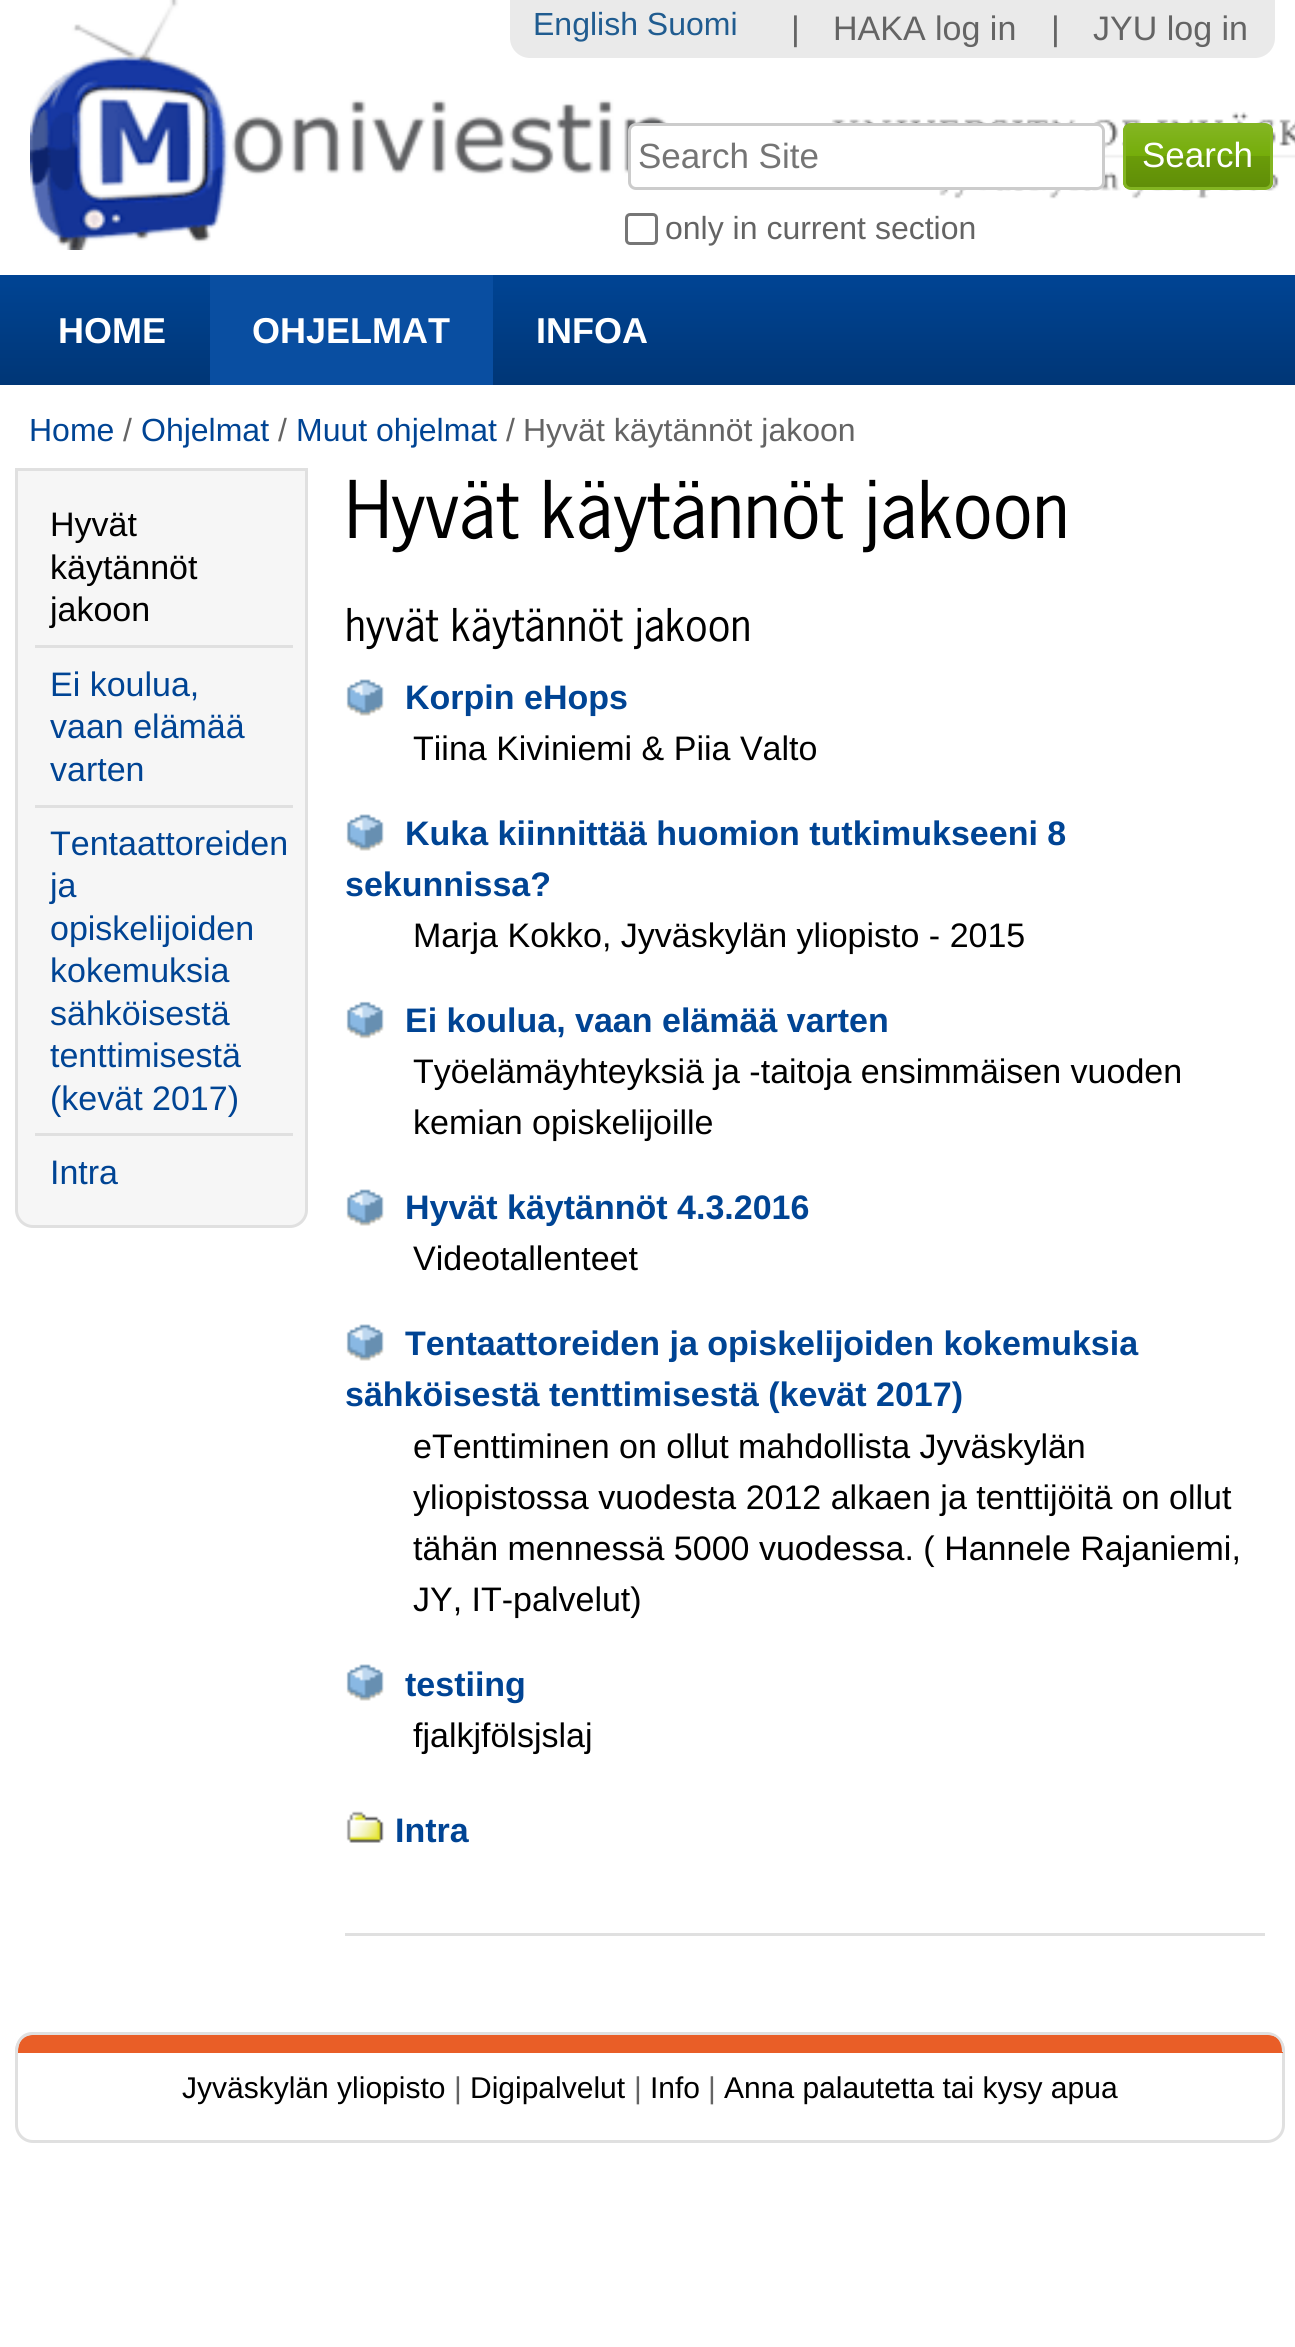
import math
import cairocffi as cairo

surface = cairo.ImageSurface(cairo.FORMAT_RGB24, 1295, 2347)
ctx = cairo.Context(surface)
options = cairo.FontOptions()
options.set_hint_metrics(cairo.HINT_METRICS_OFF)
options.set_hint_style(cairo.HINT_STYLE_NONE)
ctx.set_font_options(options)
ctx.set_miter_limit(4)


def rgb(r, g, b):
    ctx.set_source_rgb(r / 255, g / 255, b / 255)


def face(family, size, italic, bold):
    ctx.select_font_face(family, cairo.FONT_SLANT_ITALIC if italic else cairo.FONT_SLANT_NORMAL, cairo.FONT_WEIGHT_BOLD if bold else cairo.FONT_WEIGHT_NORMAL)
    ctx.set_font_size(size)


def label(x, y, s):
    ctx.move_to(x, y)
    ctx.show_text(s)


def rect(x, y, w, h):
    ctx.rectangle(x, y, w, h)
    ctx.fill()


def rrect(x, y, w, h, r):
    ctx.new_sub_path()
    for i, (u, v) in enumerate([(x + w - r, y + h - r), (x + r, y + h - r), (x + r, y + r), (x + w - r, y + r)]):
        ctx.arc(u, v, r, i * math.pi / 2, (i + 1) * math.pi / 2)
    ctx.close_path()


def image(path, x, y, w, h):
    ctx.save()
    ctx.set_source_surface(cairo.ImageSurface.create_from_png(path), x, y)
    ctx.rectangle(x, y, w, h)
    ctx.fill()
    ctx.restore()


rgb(255, 255, 255)
ctx.paint()
image('image0.png', 30, 0, 1265, 250)
rgb(234, 234, 234)
ctx.new_path()
ctx.move_to(510, 0)
ctx.line_to(1275, 0)
ctx.line_to(1275, 38)
ctx.curve_to(1275, 49, 1266, 58, 1255, 58)
ctx.line_to(530, 58)
ctx.curve_to(519, 58, 510, 49, 510, 38)
ctx.close_path()
ctx.fill()
face('Liberation Sans', 32, 0, 0)
rgb(32, 92, 144)
label(533, 35, 'English Suomi')
face('Liberation Sans', 34, 0, 0)
rgb(100, 100, 100)
label(791, 40, '|')
label(833, 40, 'HAKA log in')
label(1051, 40, '|')
label(1093, 40, 'JYU log in')
face('Liberation Sans', 32, 0, 0)
rgb(0, 68, 148)
label(29, 441, 'Home')
rgb(100, 100, 100)
label(123, 441, '/')
rgb(0, 68, 148)
label(141, 441, 'Ohjelmat')
rgb(100, 100, 100)
label(278, 441, '/')
rgb(0, 68, 148)
label(296, 441, 'Muut ohjelmat')
rgb(100, 100, 100)
label(506, 441, '/')
label(523, 441, 'Hyvät käytännöt jakoon')
rgb(246, 246, 246)
ctx.new_path()
ctx.move_to(16.5, 469.5)
ctx.line_to(306.5, 469.5)
ctx.line_to(306.5, 1210)
ctx.curve_to(306.5, 1219, 299, 1226.5, 290, 1226.5)
ctx.line_to(33, 1226.5)
ctx.curve_to(24, 1226.5, 16.5, 1219, 16.5, 1210)
ctx.close_path()
ctx.fill_preserve()
rgb(224, 224, 224)
ctx.set_line_width(3)
ctx.stroke()
face('Liberation Sans', 34, 0, 0)
rgb(0, 0, 0)
label(50, 536, 'Hyvät')
label(50, 579, 'käytännöt')
label(50, 621, 'jakoon')
rgb(224, 224, 224)
rect(35, 645, 258, 3)
rgb(0, 68, 148)
label(50, 696, 'Ei koulua,')
label(50, 738, 'vaan elämää')
label(50, 781, 'varten')
rgb(224, 224, 224)
rect(35, 805, 258, 3)
rgb(0, 68, 148)
label(50, 855, 'Tentaattoreiden')
label(50, 897, 'ja')
label(50, 940, 'opiskelijoiden')
label(50, 982, 'kokemuksia')
label(50, 1025, 'sähköisestä')
label(50, 1067, 'tenttimisestä')
label(50, 1110, '(kevät 2017)')
rgb(224, 224, 224)
rect(35, 1133, 258, 3)
rgb(0, 68, 148)
label(50, 1184, 'Intra')
face('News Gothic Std', 74.75, 0, 0)
rgb(0, 0, 0)
label(345, 538, 'Hyvät käytännöt jakoon')
face('News Gothic Std', 42.5, 0, 0)
label(345, 641, 'hyvät käytännöt jakoon')
image('image1.png', 346, 679, 38, 37)
face('Liberation Sans', 34, 0, 1)
rgb(0, 68, 148)
label(405, 709, 'Korpin eHops')
face('Liberation Sans', 34, 0, 0)
rgb(0, 0, 0)
label(413, 760, 'Tiina Kiviniemi & Piia Valto')
image('image1.png', 346, 814, 38, 37)
face('Liberation Sans', 34, 0, 1)
rgb(0, 68, 148)
label(405, 845, 'Kuka kiinnittää huomion tutkimukseeni 8')
label(345, 896, 'sekunnissa?')
face('Liberation Sans', 34, 0, 0)
rgb(0, 0, 0)
label(413, 947, 'Marja Kokko, Jyväskylän yliopisto - 2015')
image('image2.png', 346, 1001, 38, 38)
face('Liberation Sans', 34, 0, 1)
rgb(0, 68, 148)
label(405, 1032, 'Ei koulua, vaan elämää varten')
face('Liberation Sans', 34, 0, 0)
rgb(0, 0, 0)
label(413, 1083, 'Työelämäyhteyksiä ja -taitoja ensimmäisen vuoden')
label(413, 1134, 'kemian opiskelijoille')
image('image1.png', 346, 1189, 38, 37)
face('Liberation Sans', 34, 0, 1)
rgb(0, 68, 148)
label(405, 1219, 'Hyvät käytännöt 4.3.2016')
face('Liberation Sans', 34, 0, 0)
rgb(0, 0, 0)
label(413, 1270, 'Videotallenteet')
image('image1.png', 346, 1324, 38, 37)
face('Liberation Sans', 34, 0, 1)
rgb(0, 68, 148)
label(405, 1355, 'Tentaattoreiden ja opiskelijoiden kokemuksia')
label(345, 1406, 'sähköisestä tenttimisestä (kevät 2017)')
face('Liberation Sans', 34, 0, 0)
rgb(0, 0, 0)
label(413, 1458, 'eTenttiminen on ollut mahdollista Jyväskylän')
label(413, 1509, 'yliopistossa vuodesta 2012 alkaen ja tenttijöitä on ollut')
label(413, 1560, 'tähän mennessä 5000 vuodessa. ( Hannele Rajaniemi,')
label(413, 1611, 'JY, IT-palvelut)')
image('image1.png', 346, 1664, 38, 37)
face('Liberation Sans', 34, 0, 1)
rgb(0, 68, 148)
label(405, 1696, 'testiing')
face('Liberation Sans', 34, 0, 0)
rgb(0, 0, 0)
label(413, 1747, 'fjalkjfölsjslaj')
image('image3.png', 346, 1811, 38, 32)
face('Liberation Sans', 34, 0, 1)
rgb(0, 68, 148)
label(395, 1842, 'Intra')
rgb(224, 224, 224)
rect(345, 1933, 920, 3)
rrect(16.5, 2034.5, 1267, 107, 16.5)
ctx.stroke()
rgb(233, 94, 39)
ctx.new_path()
ctx.move_to(33, 2035)
ctx.line_to(1268, 2035)
ctx.curve_to(1276.5, 2035, 1283, 2041.5, 1283, 2050)
ctx.line_to(1283, 2053)
ctx.line_to(18, 2053)
ctx.line_to(18, 2050)
ctx.curve_to(18, 2041.5, 24.5, 2035, 33, 2035)
ctx.close_path()
ctx.fill()
rgb(224, 224, 224)
ctx.set_fill_rule(cairo.FILL_RULE_EVEN_ODD)
ctx.new_path()
ctx.move_to(32, 2032)
ctx.line_to(1268, 2032)
ctx.curve_to(1279, 2033, 1285, 2042, 1285, 2052)
ctx.line_to(15, 2052)
ctx.curve_to(15, 2042, 21, 2032, 32, 2032)
ctx.close_path()
ctx.move_to(32, 2035)
ctx.line_to(1268, 2035)
ctx.curve_to(1278, 2035, 1282, 2043, 1282, 2052)
ctx.line_to(18, 2052)
ctx.curve_to(18, 2043, 22, 2035, 32, 2035)
ctx.close_path()
ctx.fill()
face('Liberation Sans', 30, 0, 0)
rgb(0, 0, 0)
label(182, 2098, 'Jyväskylän yliopisto')
rgb(100, 100, 100)
label(454, 2098, '|')
rgb(0, 0, 0)
label(470, 2098, 'Digipalvelut')
rgb(100, 100, 100)
label(634, 2098, '|')
rgb(0, 0, 0)
label(650, 2098, 'Info')
rgb(100, 100, 100)
label(708, 2098, '|')
rgb(0, 0, 0)
label(724, 2098, 'Anna palautetta tai kysy apua')
rgb(255, 255, 255)
rrect(629.5, 124.5, 474, 64, 6.5)
ctx.fill_preserve()
rgb(204, 204, 204)
ctx.stroke()
face('Liberation Sans', 35, 0, 0)
rgb(117, 117, 117)
label(638, 168, 'Search Site')
ctx.save()
ctx.set_fill_rule(cairo.FILL_RULE_WINDING)
rrect(1123, 123, 150, 67, 8)
ctx.clip()
gradient = cairo.LinearGradient(1198, 125, 1198, 188)
gradient.add_color_stop_rgba(0, 0.514, 0.71, 0.133, 1)
gradient.add_color_stop_rgba(0.49, 0.459, 0.678, 0.039, 1)
gradient.add_color_stop_rgba(0.5, 0.416, 0.612, 0.035, 1)
gradient.add_color_stop_rgba(1, 0.376, 0.553, 0.031, 1)
ctx.set_source(gradient)
rect(1123, 125, 150, 63)
ctx.restore()
rrect(1124.5, 124.5, 147, 64, 6.5)
rgb(131, 181, 34)
ctx.stroke()
rgb(255, 255, 255)
label(1142, 167, 'Search')
rrect(626.5, 214.5, 30, 29, 3.5)
rgb(118, 118, 118)
ctx.stroke()
face('Liberation Sans', 32, 0, 0)
rgb(100, 100, 100)
label(665, 239, 'only in current section')
gradient = cairo.LinearGradient(648, 275, 648, 385)
gradient.add_color_stop_rgba(0, 0, 0.267, 0.58, 1)
gradient.add_color_stop_rgba(1, 0, 0.212, 0.463, 1)
ctx.set_source(gradient)
rect(0, 275, 1295, 110)
face('Liberation Sans', 36, 0, 1)
rgb(255, 255, 255)
label(58, 343, 'HOME')
rgb(9, 78, 161)
rect(210, 275, 283, 110)
rgb(255, 255, 255)
label(252, 343, 'OHJELMAT')
label(536, 343, 'INFOA')
surface.write_to_png('render.png')
